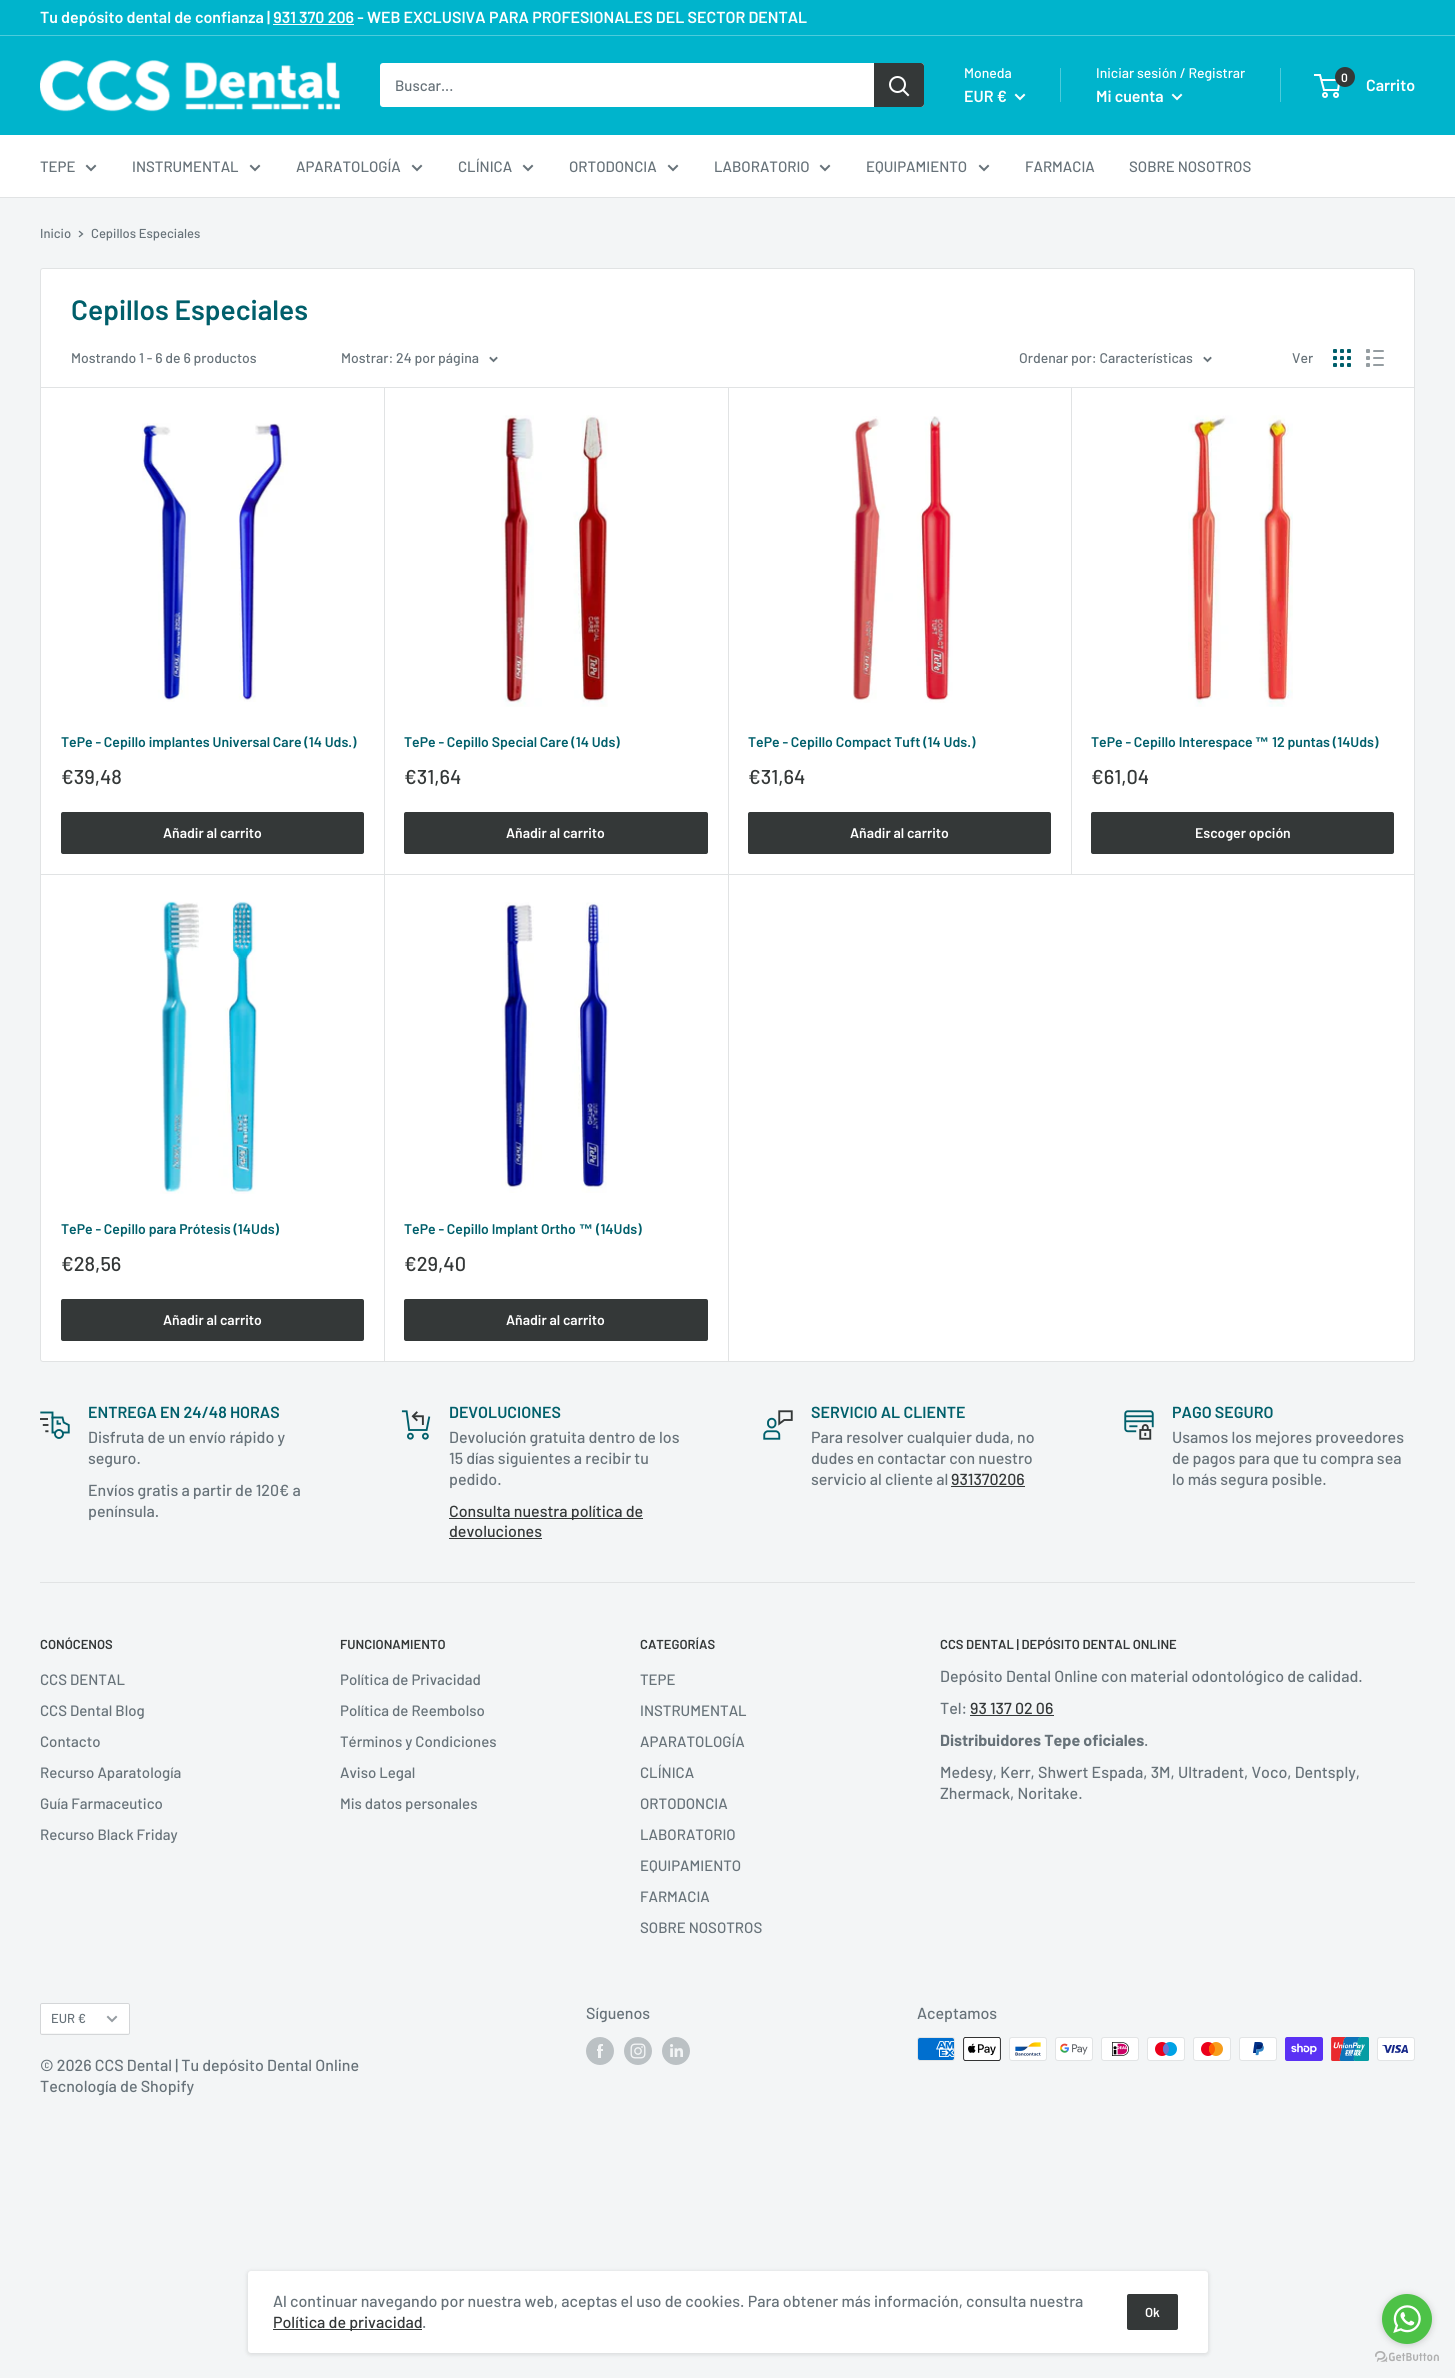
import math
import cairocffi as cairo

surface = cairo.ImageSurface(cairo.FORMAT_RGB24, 1455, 2378)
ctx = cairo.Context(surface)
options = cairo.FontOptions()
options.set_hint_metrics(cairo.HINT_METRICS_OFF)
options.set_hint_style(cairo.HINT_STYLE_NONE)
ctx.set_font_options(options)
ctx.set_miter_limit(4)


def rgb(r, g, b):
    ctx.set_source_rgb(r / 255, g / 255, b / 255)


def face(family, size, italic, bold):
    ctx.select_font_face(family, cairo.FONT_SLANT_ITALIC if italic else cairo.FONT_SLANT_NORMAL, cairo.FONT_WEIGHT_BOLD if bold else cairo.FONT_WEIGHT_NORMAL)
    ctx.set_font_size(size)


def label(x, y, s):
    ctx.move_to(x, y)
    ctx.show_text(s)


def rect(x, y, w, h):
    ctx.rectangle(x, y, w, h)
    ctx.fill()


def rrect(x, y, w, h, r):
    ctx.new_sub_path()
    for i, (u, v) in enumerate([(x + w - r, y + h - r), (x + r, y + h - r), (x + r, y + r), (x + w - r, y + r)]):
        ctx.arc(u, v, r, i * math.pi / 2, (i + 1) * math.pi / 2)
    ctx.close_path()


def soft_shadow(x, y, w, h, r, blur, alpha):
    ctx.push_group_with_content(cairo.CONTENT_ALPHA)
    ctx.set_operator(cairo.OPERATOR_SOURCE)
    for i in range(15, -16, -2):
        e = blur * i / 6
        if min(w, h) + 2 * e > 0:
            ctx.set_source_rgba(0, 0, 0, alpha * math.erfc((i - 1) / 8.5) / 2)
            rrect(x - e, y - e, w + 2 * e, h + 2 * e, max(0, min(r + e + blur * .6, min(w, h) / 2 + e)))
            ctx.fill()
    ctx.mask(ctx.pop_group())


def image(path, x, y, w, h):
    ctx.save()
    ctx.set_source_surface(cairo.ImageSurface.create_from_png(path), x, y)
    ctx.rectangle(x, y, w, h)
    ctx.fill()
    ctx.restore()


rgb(243, 245, 246)
ctx.paint()
rgb(0, 180, 204)
rect(0, 0, 1455, 35)
rgb(77, 203, 219)
rect(0, 35, 1455, 1)
face('Barlow SemiBold', 16, 0, 0)
rgb(255, 255, 255)
label(40, 23, 'Tu depósito dental de confianza | 931 370 206 - WEB EXCLUSIVA PARA PROFESIONALES DEL SECTOR DENTAL')
rect(273, 24, 81, 1)
rgb(0, 180, 204)
rect(0, 36, 1455, 99)
image('image0.png', 40, 60, 300, 52)
rgb(255, 255, 255)
rrect(380, 63, 544, 44, 3)
ctx.fill()
face('Barlow Medium', 15, 0, 0)
rgb(103, 114, 121)
label(395, 91, 'Buscar...')
rgb(52, 56, 56)
ctx.new_path()
ctx.move_to(874, 63)
ctx.line_to(921, 63)
ctx.curve_to(922.5, 63, 924, 64.5, 924, 66)
ctx.line_to(924, 104)
ctx.curve_to(924, 105.5, 922.5, 107, 921, 107)
ctx.line_to(874, 107)
ctx.close_path()
ctx.fill()
ctx.new_path()
ctx.move_to(908, 95)
ctx.line_to(903, 90)
rgb(255, 255, 255)
ctx.set_line_cap(cairo.LINE_CAP_SQUARE)
ctx.stroke()
ctx.arc(897.5, 84.5, 7.5, 0, 2 * math.pi)
ctx.set_line_cap(cairo.LINE_CAP_BUTT)
ctx.stroke()
face('Barlow Medium', 14, 0, 0)
label(964, 78, 'Moneda')
face('Barlow SemiBold', 16, 0, 0)
label(964, 102, 'EUR €')
ctx.new_path()
ctx.move_to(1024, 95)
ctx.line_to(1020, 99)
ctx.line_to(1016, 95)
ctx.set_line_cap(cairo.LINE_CAP_SQUARE)
ctx.stroke()
rgb(77, 203, 219)
rect(1060, 68, 1, 34)
face('Barlow Medium', 14, 0, 0)
rgb(255, 255, 255)
label(1096, 78, 'Iniciar sesión / Registrar')
rgb(77, 203, 219)
rect(1280, 68, 1, 34)
face('Barlow SemiBold', 16, 0, 0)
rgb(255, 255, 255)
label(1096, 102, 'Mi cuenta')
ctx.new_path()
ctx.move_to(1181, 95)
ctx.line_to(1177, 99)
ctx.line_to(1173, 95)
ctx.stroke()
ctx.arc(1325, 95, 2, 0, 2 * math.pi)
ctx.set_line_cap(cairo.LINE_CAP_BUTT)
ctx.stroke()
ctx.arc(1336, 95, 2, 0, 2 * math.pi)
ctx.stroke()
ctx.new_path()
ctx.move_to(1321.5, 80)
ctx.line_to(1339.5, 80)
ctx.line_to(1338, 90)
ctx.line_to(1324, 90)
ctx.line_to(1320, 75)
ctx.line_to(1314, 75)
ctx.stroke()
rgb(52, 56, 56)
ctx.arc(1345, 77, 10, 0, 2 * math.pi)
ctx.fill()
face('Barlow SemiBold', 12, 0, 0)
rgb(255, 255, 255)
label(1341, 82, '0')
face('Barlow SemiBold', 16, 0, 0)
label(1366, 91, 'Carrito')
rect(0, 135, 1455, 62)
rgb(225, 227, 228)
rect(0, 197, 1455, 1)
face('Barlow Medium', 15, 0, 0)
rgb(103, 114, 121)
label(40, 172, 'TEPE')
ctx.new_path()
ctx.move_to(95, 166)
ctx.line_to(91, 170)
ctx.line_to(87, 166)
ctx.set_line_cap(cairo.LINE_CAP_SQUARE)
ctx.stroke()
label(132, 172, 'INSTRUMENTAL')
ctx.new_path()
ctx.move_to(259, 166)
ctx.line_to(255, 170)
ctx.line_to(251, 166)
ctx.stroke()
label(296, 172, 'APARATOLOGÍA')
ctx.new_path()
ctx.move_to(421, 166)
ctx.line_to(417, 170)
ctx.line_to(413, 166)
ctx.stroke()
label(458, 172, 'CLÍNICA')
ctx.new_path()
ctx.move_to(532, 166)
ctx.line_to(528, 170)
ctx.line_to(524, 166)
ctx.stroke()
label(569, 172, 'ORTODONCIA')
ctx.new_path()
ctx.move_to(677, 166)
ctx.line_to(673, 170)
ctx.line_to(669, 166)
ctx.stroke()
label(714, 172, 'LABORATORIO')
ctx.new_path()
ctx.move_to(829, 166)
ctx.line_to(825, 170)
ctx.line_to(821, 166)
ctx.stroke()
label(866, 172, 'EQUIPAMIENTO')
ctx.new_path()
ctx.move_to(988, 166)
ctx.line_to(984, 170)
ctx.line_to(980, 166)
ctx.stroke()
label(1025, 172, 'FARMACIA')
label(1129, 172, 'SOBRE NOSOTROS')
face('Barlow Medium', 13, 0, 0)
label(40, 238, 'Inicio')
ctx.new_path()
ctx.move_to(79.5, 231.5)
ctx.line_to(82.5, 234)
ctx.line_to(79.5, 236.5)
ctx.set_line_width(1.3)
ctx.stroke()
label(91, 238, 'Cepillos Especiales')
rgb(255, 255, 255)
rrect(40.5, 268.5, 1374, 1093, 2.5)
ctx.fill_preserve()
rgb(225, 227, 228)
ctx.set_line_width(1)
ctx.set_line_cap(cairo.LINE_CAP_BUTT)
ctx.stroke()
face('Barlow SemiBold', 28, 0, 0)
rgb(0, 95, 107)
label(71, 320, 'Cepillos Especiales')
rgb(225, 227, 228)
rect(41, 874, 1373, 1)
rect(384, 387, 1, 974)
rect(728, 387, 1, 974)
rect(1071, 387, 1, 487)
rect(41, 387, 1373, 1)
face('Barlow Medium', 14, 0, 0)
rgb(103, 114, 121)
label(71, 363, 'Mostrando 1 - 6 de 6 productos')
label(341, 363, 'Mostrar: 24 por página')
ctx.new_path()
ctx.move_to(496.5, 358)
ctx.line_to(493.5, 361)
ctx.line_to(490.5, 358)
ctx.set_line_width(1.9)
ctx.set_line_cap(cairo.LINE_CAP_SQUARE)
ctx.stroke()
label(1019, 363, 'Ordenar por: Características')
ctx.new_path()
ctx.move_to(1210.5, 358)
ctx.line_to(1207.5, 361)
ctx.line_to(1204.5, 358)
ctx.stroke()
label(1292, 363, 'Ver')
image('image1.png', 1333, 349, 18, 18)
image('image2.png', 1366, 349, 18, 18)
image('image3.png', 142, 423, 146, 279)
face('Barlow SemiBold', 14, 0, 0)
rgb(0, 95, 107)
label(61, 747, 'TePe - Cepillo implantes Universal Care (14 Uds.)')
face('Barlow Medium', 20, 0, 0)
rgb(52, 56, 56)
label(61, 784, '€39,48')
rrect(61, 812, 303, 42, 2)
ctx.fill()
face('Barlow SemiBold', 14, 0, 0)
rgb(255, 255, 255)
label(163, 838, 'Añadir al carrito')
image('image4.png', 501, 415, 107, 292)
rgb(0, 95, 107)
label(404, 747, 'TePe - Cepillo Special Care (14 Uds)')
face('Barlow Medium', 20, 0, 0)
rgb(52, 56, 56)
label(404, 784, '€31,64')
rrect(404, 812, 304, 42, 2)
ctx.fill()
face('Barlow SemiBold', 14, 0, 0)
rgb(255, 255, 255)
label(506, 838, 'Añadir al carrito')
image('image5.png', 852, 416, 101, 287)
rgb(0, 95, 107)
label(748, 747, 'TePe - Cepillo Compact Tuft (14 Uds.)')
face('Barlow Medium', 20, 0, 0)
rgb(52, 56, 56)
label(748, 784, '€31,64')
rrect(748, 812, 303, 42, 2)
ctx.fill()
face('Barlow SemiBold', 14, 0, 0)
rgb(255, 255, 255)
label(850, 838, 'Añadir al carrito')
image('image6.png', 1188, 415, 105, 292)
rgb(0, 95, 107)
label(1091, 747, 'TePe - Cepillo Interespace')
face('Liberation Sans', 14, 0, 1)
label(1255, 747, '™')
face('Barlow SemiBold', 14, 0, 0)
label(1272, 747, '12 puntas (14Uds)')
face('Barlow Medium', 20, 0, 0)
rgb(52, 56, 56)
label(1091, 784, '€61,04')
rrect(1091, 812, 303, 42, 2)
ctx.fill()
face('Barlow SemiBold', 14, 0, 0)
rgb(255, 255, 255)
label(1195, 838, 'Escoger opción')
image('image7.png', 160, 901, 98, 293)
rgb(0, 95, 107)
label(61, 1234, 'TePe - Cepillo para Prótesis (14Uds)')
face('Barlow Medium', 20, 0, 0)
rgb(52, 56, 56)
label(61, 1271, '€28,56')
rrect(61, 1299, 303, 42, 2)
ctx.fill()
face('Barlow SemiBold', 14, 0, 0)
rgb(255, 255, 255)
label(163, 1325, 'Añadir al carrito')
image('image8.png', 501, 902, 108, 291)
rgb(0, 95, 107)
label(404, 1234, 'TePe - Cepillo Implant Ortho')
face('Liberation Sans', 14, 0, 1)
label(579, 1234, '™')
face('Barlow SemiBold', 14, 0, 0)
label(596, 1234, '(14Uds)')
face('Barlow Medium', 20, 0, 0)
rgb(52, 56, 56)
label(404, 1271, '€29,40')
rrect(404, 1299, 304, 42, 2)
ctx.fill()
face('Barlow SemiBold', 14, 0, 0)
rgb(255, 255, 255)
label(506, 1325, 'Añadir al carrito')
image('image9.png', 40, 1411, 30, 28)
face('Barlow SemiBold', 16, 0, 0)
rgb(0, 95, 107)
label(88, 1418, 'ENTREGA EN 24/48 HORAS')
face('Barlow Medium', 16, 0, 0)
rgb(103, 114, 121)
label(88, 1443, 'Disfruta de un envío rápido y')
label(88, 1464, 'seguro.')
label(88, 1496, 'Envíos gratis a partir de 120€ a')
label(88, 1517, 'península.')
image('image10.png', 401, 1410, 30, 30)
face('Barlow SemiBold', 16, 0, 0)
rgb(0, 95, 107)
label(449, 1418, 'DEVOLUCIONES')
face('Barlow Medium', 16, 0, 0)
rgb(103, 114, 121)
label(449, 1443, 'Devolución gratuita dentro de los')
label(449, 1464, '15 días siguientes a recibir tu')
label(449, 1485, 'pedido.')
rgb(52, 56, 56)
rect(449, 1518, 194, 1)
label(449, 1517, 'Consulta nuestra política de')
label(449, 1537, 'devoluciones')
rect(449, 1538, 93, 1)
image('image11.png', 763, 1410, 30, 30)
face('Barlow SemiBold', 16, 0, 0)
rgb(0, 95, 107)
label(811, 1418, 'SERVICIO AL CLIENTE')
face('Barlow Medium', 16, 0, 0)
rgb(103, 114, 121)
label(811, 1443, 'Para resolver cualquier duda, no')
label(811, 1464, 'dudes en contactar con nuestro')
label(811, 1485, 'servicio al cliente al')
rgb(52, 56, 56)
label(951, 1485, '931370206')
rect(951, 1486, 74, 1)
image('image12.png', 1124, 1410, 30, 30)
face('Barlow SemiBold', 16, 0, 0)
rgb(0, 95, 107)
label(1172, 1418, 'PAGO SEGURO')
face('Barlow Medium', 16, 0, 0)
rgb(103, 114, 121)
label(1172, 1443, 'Usamos los mejores proveedores')
label(1172, 1464, 'de pagos para que tu compra sea')
label(1172, 1485, 'lo más segura posible.')
rgb(225, 227, 228)
rect(40, 1582, 1375, 1)
face('Barlow SemiBold', 13, 0, 0)
rgb(52, 56, 56)
label(40, 1649, 'CONÓCENOS')
face('Barlow Medium', 15, 0, 0)
rgb(103, 114, 121)
label(40, 1685, 'CCS DENTAL')
label(40, 1716, 'CCS Dental Blog')
label(40, 1747, 'Contacto')
label(40, 1778, 'Recurso Aparatología')
label(40, 1809, 'Guía Farmaceutico')
label(40, 1840, 'Recurso Black Friday')
face('Barlow SemiBold', 13, 0, 0)
rgb(52, 56, 56)
label(340, 1649, 'FUNCIONAMIENTO')
face('Barlow Medium', 15, 0, 0)
rgb(103, 114, 121)
label(340, 1685, 'Política de Privacidad')
label(340, 1716, 'Política de Reembolso')
label(340, 1747, 'Términos y Condiciones')
label(340, 1778, 'Aviso Legal')
label(340, 1809, 'Mis datos personales')
face('Barlow SemiBold', 13, 0, 0)
rgb(52, 56, 56)
label(640, 1649, 'CATEGORÍAS')
face('Barlow Medium', 15, 0, 0)
rgb(103, 114, 121)
label(640, 1685, 'TEPE')
label(640, 1716, 'INSTRUMENTAL')
label(640, 1747, 'APARATOLOGÍA')
label(640, 1778, 'CLÍNICA')
label(640, 1809, 'ORTODONCIA')
label(640, 1840, 'LABORATORIO')
label(640, 1871, 'EQUIPAMIENTO')
label(640, 1902, 'FARMACIA')
label(640, 1933, 'SOBRE NOSOTROS')
face('Barlow SemiBold', 13, 0, 0)
rgb(52, 56, 56)
label(940, 1649, 'CCS DENTAL | DEPÓSITO DENTAL ONLINE')
face('Barlow Medium', 16, 0, 0)
rgb(103, 114, 121)
label(940, 1682, 'Depósito Dental Online con material odontológico de calidad.')
label(940, 1714, 'Tel:')
rgb(52, 56, 56)
label(970, 1714, '93 137 02 06')
rect(970, 1715, 84, 1)
face('Barlow', 16, 0, 1)
rgb(103, 114, 121)
label(940, 1746, 'Distribuidores Tepe oficiales')
face('Barlow Medium', 16, 0, 0)
label(1144, 1746, '.')
label(940, 1778, 'Medesy, Kerr, Shwert Espada, 3M, Ultradent, Voco, Dentsply,')
label(940, 1799, 'Zhermack, Noritake.')
rgb(255, 255, 255)
rrect(40, 2003, 90, 32, 2)
ctx.fill()
rgb(246, 247, 247)
ctx.new_path()
ctx.move_to(41, 2032)
ctx.curve_to(41, 2033, 41, 2034, 42, 2034)
ctx.line_to(128, 2034)
ctx.curve_to(129, 2034, 129, 2033, 129, 2032)
ctx.curve_to(129, 2033, 129, 2033, 128, 2033)
ctx.line_to(42, 2033)
ctx.curve_to(41, 2033, 41, 2033, 41, 2032)
ctx.close_path()
ctx.fill()
rrect(40.5, 2003.5, 89, 31, 1.5)
rgb(212, 214, 216)
ctx.set_line_width(1)
ctx.set_line_cap(cairo.LINE_CAP_BUTT)
ctx.stroke()
face('Barlow Medium', 13, 0, 0)
rgb(103, 114, 121)
label(51, 2023, 'EUR €')
ctx.new_path()
ctx.move_to(116, 2017)
ctx.line_to(112, 2021)
ctx.line_to(108, 2017)
rgb(149, 156, 161)
ctx.set_line_width(2)
ctx.set_line_cap(cairo.LINE_CAP_SQUARE)
ctx.stroke()
face('Barlow Medium', 16, 0, 0)
rgb(103, 114, 121)
label(40, 2071, '© 2026 CCS Dental | Tu depósito Dental Online')
label(40, 2092, 'Tecnología de Shopify')
label(586, 2019, 'Síguenos')
image('image13.png', 586, 2037, 28, 28)
image('image14.png', 624, 2037, 28, 28)
image('image15.png', 662, 2037, 28, 28)
label(917, 2019, 'Aceptamos')
image('image16.png', 917, 2037, 38, 24)
image('image17.png', 963, 2037, 38, 24)
image('image18.png', 1009, 2037, 38, 24)
image('image19.png', 1055, 2037, 38, 24)
image('image20.png', 1101, 2037, 38, 24)
image('image21.png', 1147, 2037, 38, 24)
image('image22.png', 1193, 2037, 38, 24)
image('image23.png', 1239, 2037, 38, 24)
image('image24.png', 1285, 2037, 38, 24)
image('image25.png', 1331, 2037, 38, 24)
image('image26.png', 1377, 2037, 38, 24)
rgb(0, 0, 0)
soft_shadow(247, 2271, 962, 84, 4, 2, 0.1)
rgb(255, 255, 255)
rrect(248, 2271, 960, 82, 3)
ctx.fill()
rgb(103, 114, 121)
label(273, 2307, 'Al continuar navegando por nuestra web, aceptas el uso de cookies. Para obtener más información, consulta nuestra')
rgb(52, 56, 56)
rect(273, 2329, 149, 1)
label(273, 2328, 'Política de privacidad')
rgb(103, 114, 121)
label(422, 2328, '.')
rgb(52, 56, 56)
rrect(1127, 2294, 51, 36, 2)
ctx.fill()
face('Barlow SemiBold', 13, 0, 0)
rgb(255, 255, 255)
label(1145, 2317, 'Ok')
image('image28.png', 1375, 2351, 64, 11)
rgb(136, 136, 136)
soft_shadow(1382, 2295, 50, 50, 25, 3.5, 0.4)
rgb(77, 194, 71)
ctx.arc(1407, 2319, 25, 0, 2 * math.pi)
ctx.fill()
image('image27.png', 1393, 2305, 28, 28)
surface.write_to_png('render.png')
